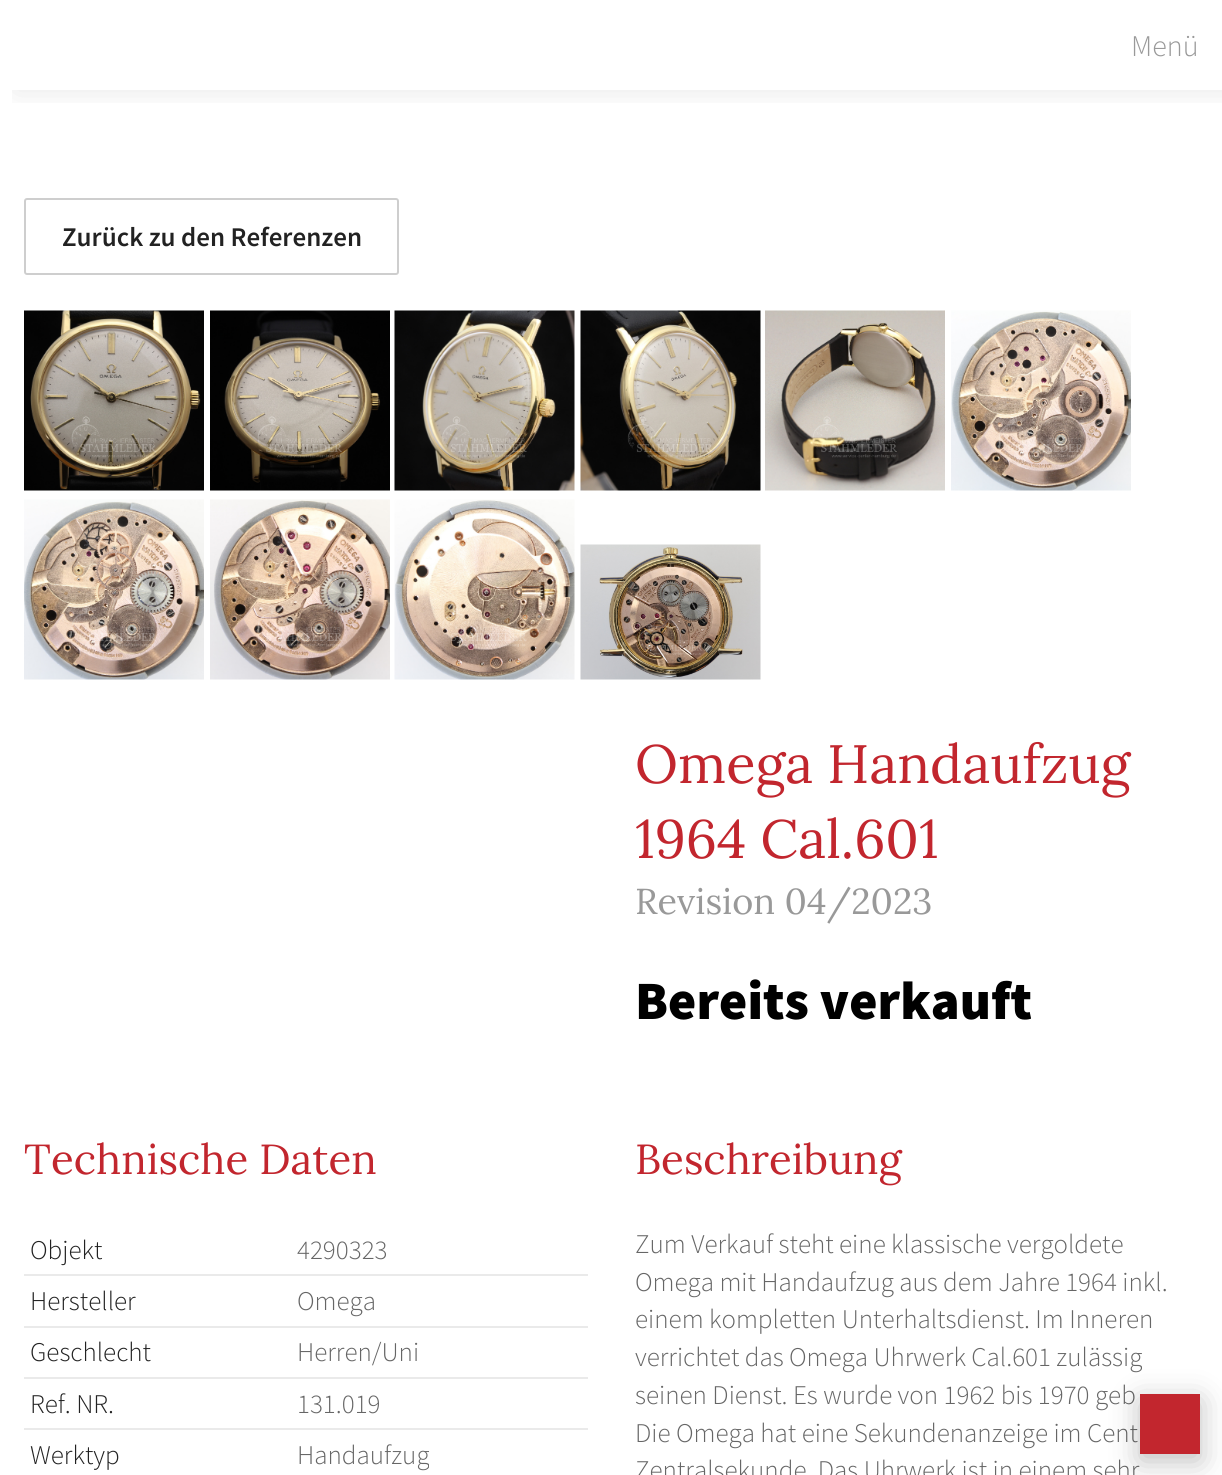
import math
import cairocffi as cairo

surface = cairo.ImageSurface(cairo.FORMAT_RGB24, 1222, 1475)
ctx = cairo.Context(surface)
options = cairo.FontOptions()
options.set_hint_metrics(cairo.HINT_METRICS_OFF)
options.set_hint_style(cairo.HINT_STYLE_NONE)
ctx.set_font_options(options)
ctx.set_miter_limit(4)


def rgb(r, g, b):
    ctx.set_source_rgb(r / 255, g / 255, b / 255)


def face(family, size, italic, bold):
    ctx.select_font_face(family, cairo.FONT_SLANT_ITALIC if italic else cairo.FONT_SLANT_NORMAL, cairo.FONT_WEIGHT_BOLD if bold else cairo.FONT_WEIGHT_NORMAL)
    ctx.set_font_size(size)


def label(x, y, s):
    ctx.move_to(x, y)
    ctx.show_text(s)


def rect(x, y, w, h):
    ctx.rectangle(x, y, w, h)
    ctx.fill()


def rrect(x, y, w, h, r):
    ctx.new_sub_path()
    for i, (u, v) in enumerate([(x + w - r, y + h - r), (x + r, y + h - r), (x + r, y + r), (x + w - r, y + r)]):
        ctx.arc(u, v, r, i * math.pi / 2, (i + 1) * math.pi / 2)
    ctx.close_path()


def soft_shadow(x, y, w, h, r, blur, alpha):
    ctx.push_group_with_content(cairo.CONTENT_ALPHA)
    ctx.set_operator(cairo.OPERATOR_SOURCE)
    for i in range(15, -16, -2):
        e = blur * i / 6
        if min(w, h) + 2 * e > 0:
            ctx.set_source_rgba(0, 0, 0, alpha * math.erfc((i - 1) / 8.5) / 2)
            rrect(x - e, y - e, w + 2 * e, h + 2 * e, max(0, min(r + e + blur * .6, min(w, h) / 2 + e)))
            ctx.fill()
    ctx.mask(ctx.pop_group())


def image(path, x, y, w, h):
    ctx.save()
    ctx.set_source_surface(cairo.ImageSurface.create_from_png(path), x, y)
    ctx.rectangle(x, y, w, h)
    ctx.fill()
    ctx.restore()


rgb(255, 255, 255)
ctx.paint()
ctx.save()
ctx.rectangle(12, 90, 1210, 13)
ctx.clip()
rgb(0, 0, 0)
soft_shadow(15, 0, 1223, 90, 0, 15, 0.1)
ctx.restore()
face('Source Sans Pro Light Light', 30, 0, 0)
rgb(153, 153, 153)
label(1131, 56, 'Menü')
rrect(25, 199, 373, 75, 2)
rgb(206, 206, 206)
ctx.stroke()
face('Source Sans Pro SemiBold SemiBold', 27, 0, 0)
rgb(34, 34, 34)
label(62, 246, 'Zurück zu den Referenzen')
image('image0.png', 24, 310, 180, 181)
image('image1.png', 210, 310, 180, 181)
image('image2.png', 394, 310, 181, 181)
image('image3.png', 580, 310, 181, 181)
image('image4.png', 765, 310, 180, 181)
image('image5.png', 951, 310, 180, 181)
image('image6.png', 24, 499, 180, 181)
image('image7.png', 210, 499, 180, 181)
image('image8.png', 394, 499, 181, 181)
image('image9.png', 580, 544, 181, 136)
face('Lora', 54, 0, 0)
rgb(194, 38, 46)
label(635, 783, 'Omega Handaufzug')
label(635, 858, '1964 Cal.601')
face('Lora', 36, 0, 0)
rgb(153, 153, 153)
label(635, 914, 'Revision 04/2023')
face('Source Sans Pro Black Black', 54, 0, 0)
rgb(0, 0, 0)
label(635, 1019, 'Bereits verkauft')
face('Lora', 42, 0, 0)
rgb(194, 38, 46)
label(24, 1174, 'Technische Daten')
rgb(234, 234, 234)
rect(24, 1274, 564, 2)
face('Source Sans Pro Light Light', 27, 0, 0)
rgb(34, 34, 34)
label(30, 1259, 'Objekt')
rgb(102, 102, 102)
label(297, 1259, '4290323')
rgb(234, 234, 234)
rect(24, 1326, 564, 2)
rgb(34, 34, 34)
label(30, 1310, 'Hersteller')
rgb(102, 102, 102)
label(297, 1310, 'Omega')
rgb(234, 234, 234)
rect(24, 1377, 564, 2)
rgb(34, 34, 34)
label(30, 1361, 'Geschlecht')
rgb(102, 102, 102)
label(297, 1361, 'Herren/Uni')
rgb(234, 234, 234)
rect(24, 1428, 564, 2)
rgb(34, 34, 34)
label(30, 1413, 'Ref. NR.')
rgb(102, 102, 102)
label(297, 1413, '131.019')
rgb(34, 34, 34)
label(30, 1464, 'Werktyp')
rgb(102, 102, 102)
label(297, 1464, 'Handaufzug')
face('Lora', 42, 0, 0)
rgb(194, 38, 46)
label(635, 1174, 'Beschreibung')
face('Source Sans Pro Light Light', 27, 0, 0)
rgb(102, 102, 102)
label(635, 1253, 'Zum Verkauf steht eine klassische vergoldete')
label(635, 1291, 'Omega mit Handaufzug aus dem Jahre 1964 inkl.')
label(635, 1328, 'einem kompletten Unterhaltsdienst. Im Inneren')
label(635, 1366, 'verrichtet das Omega Uhrwerk Cal.601 zulässig')
label(635, 1404, 'seinen Dienst. Es wurde von 1962 bis 1970 geb')
label(635, 1442, 'Die Omega hat eine Sekundenanzeige im Cent')
label(635, 1479, 'Zentralsekunde. Das Uhrwerk ist in einem sehr')
rgb(0, 0, 0)
soft_shadow(1140, 1401, 60, 60, 0, 15, 0.25)
rgb(194, 38, 46)
rect(1140, 1394, 60, 60)
surface.write_to_png('render.png')
